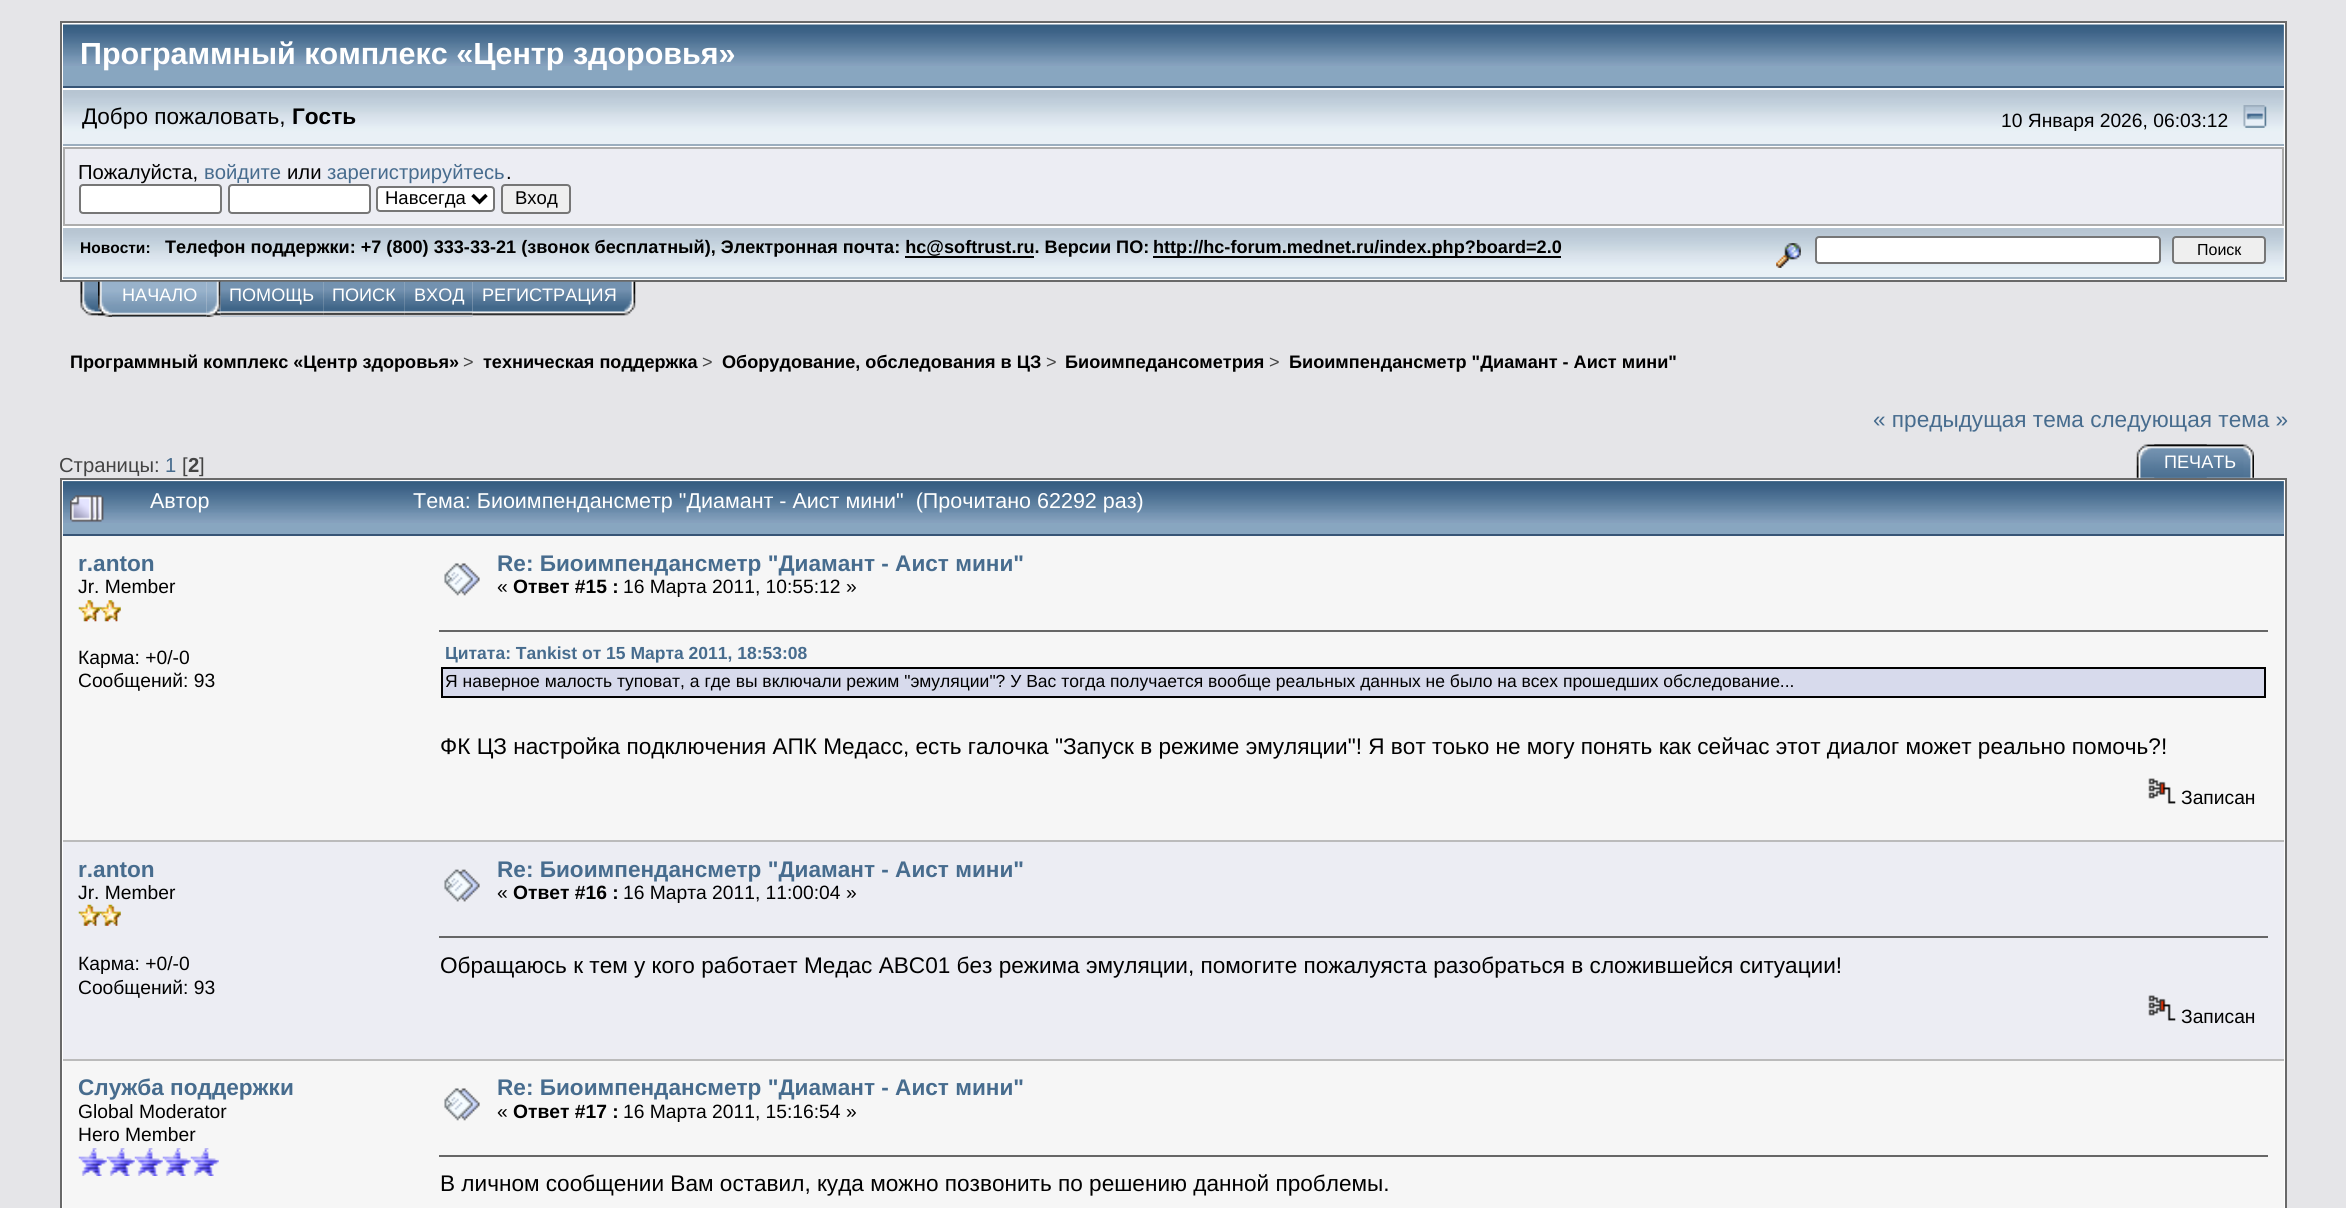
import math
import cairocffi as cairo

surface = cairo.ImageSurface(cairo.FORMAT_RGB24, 2346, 1208)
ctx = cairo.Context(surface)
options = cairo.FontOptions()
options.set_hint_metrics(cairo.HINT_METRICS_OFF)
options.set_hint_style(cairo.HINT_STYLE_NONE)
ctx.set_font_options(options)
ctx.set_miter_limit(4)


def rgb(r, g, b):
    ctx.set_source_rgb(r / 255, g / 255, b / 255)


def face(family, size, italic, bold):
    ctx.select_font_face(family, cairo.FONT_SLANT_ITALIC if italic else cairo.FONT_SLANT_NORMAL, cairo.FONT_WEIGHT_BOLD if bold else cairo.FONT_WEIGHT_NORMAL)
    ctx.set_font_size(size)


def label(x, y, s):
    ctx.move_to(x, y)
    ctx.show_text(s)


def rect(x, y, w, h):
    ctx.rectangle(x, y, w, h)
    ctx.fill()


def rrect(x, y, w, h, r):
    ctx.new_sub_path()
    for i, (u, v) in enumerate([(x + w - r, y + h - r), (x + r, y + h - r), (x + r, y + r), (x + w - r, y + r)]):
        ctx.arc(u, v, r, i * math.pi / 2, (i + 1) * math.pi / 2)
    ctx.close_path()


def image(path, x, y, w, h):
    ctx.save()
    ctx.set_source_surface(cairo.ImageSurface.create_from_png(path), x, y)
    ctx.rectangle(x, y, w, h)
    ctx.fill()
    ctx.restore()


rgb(229, 229, 232)
ctx.paint()
rgb(255, 255, 255)
ctx.rectangle(61, 22, 2225, 259)
ctx.fill_preserve()
rgb(105, 105, 105)
ctx.stroke()
rgb(136, 166, 192)
rect(63, 25, 2221, 61)
image('image0.png', 63, 24, 2221, 42)
rgb(55, 85, 118)
rect(63, 86, 2221, 2)
face('Liberation Sans', 30.5, 0, 1)
rgb(255, 255, 255)
label(80, 64, 'Программный комплекс «Центр здоровья»')
image('image1.png', 63, 90, 2221, 54)
rgb(155, 174, 191)
rect(63, 144, 2221, 2)
face('Liberation Sans', 22.6, 0, 0)
rgb(0, 0, 0)
label(82, 124, 'Добро пожаловать,')
face('Liberation Sans', 22.6, 0, 1)
label(292, 124, 'Гость')
face('Liberation Sans', 19.25, 0, 0)
label(2001, 127, '10 Января 2026, 06:03:12')
image('image2.png', 2243, 105, 24, 23)
rgb(173, 173, 173)
rect(63, 147, 2221, 79)
rgb(236, 237, 243)
rect(65, 149, 2217, 75)
face('Liberation Sans', 20.25, 0, 0)
rgb(0, 0, 0)
label(78, 179, 'Пожалуйста,')
rgb(71, 108, 142)
label(204, 179, 'войдите')
rgb(0, 0, 0)
label(287, 179, 'или')
rgb(71, 108, 142)
label(327, 179, 'зарегистрируйтесь')
rgb(0, 0, 0)
label(506, 179, '.')
rgb(255, 255, 255)
rrect(80, 185, 141, 28, 3)
ctx.fill_preserve()
rgb(118, 118, 118)
ctx.stroke()
rgb(255, 255, 255)
rrect(229, 185, 141, 28, 3)
ctx.fill_preserve()
rgb(118, 118, 118)
ctx.stroke()
rgb(255, 255, 255)
rrect(377, 187, 117, 24, 3)
ctx.fill_preserve()
rgb(118, 118, 118)
ctx.stroke()
ctx.new_path()
ctx.move_to(472.5, 195)
ctx.line_to(479.5, 202)
ctx.line_to(486.5, 195)
rgb(0, 0, 0)
ctx.set_line_width(3.5)
ctx.stroke()
face('Liberation Sans', 18.5, 0, 0)
label(385, 204, 'Навсегда')
rgb(239, 239, 239)
rrect(502, 185, 68, 28, 3)
ctx.fill_preserve()
rgb(118, 118, 118)
ctx.set_line_width(2)
ctx.stroke()
rgb(0, 0, 0)
label(515, 204, 'Вход')
image('image3.png', 63, 228, 2221, 49)
rgb(155, 174, 191)
rect(63, 277, 2221, 2)
face('Liberation Sans', 15.5, 0, 1)
rgb(0, 0, 0)
label(80, 253, 'Новости:')
face('Liberation Sans', 18.1, 0, 1)
label(165, 253, 'Телефон поддержки: +7 (800) 333-33-21 (звонок бесплатный), Электронная почта: hc@softrust.ru. Версии ПО:')
rect(905, 256, 129, 2)
rect(1153, 256, 408, 2)
label(1153, 253, 'http://hc-forum.mednet.ru/index.php?board=2.0')
image('image4.png', 1776, 243, 25, 25)
rgb(255, 255, 255)
rrect(1816, 237, 344, 26, 3)
ctx.fill_preserve()
rgb(118, 118, 118)
ctx.stroke()
rgb(239, 239, 239)
rrect(2173, 237, 92, 26, 3)
ctx.fill_preserve()
rgb(118, 118, 118)
ctx.stroke()
face('Liberation Sans', 16, 0, 0)
rgb(0, 0, 0)
label(2197, 255, 'Поиск')
image('image5.png', 80, 281, 71, 35)
image('image6.png', 206, 281, 15, 36)
image('image7.png', 98, 281, 14, 36)
image('image8.png', 112, 281, 95, 36)
face('Liberation Sans', 18.1, 0, 0)
rgb(255, 255, 255)
label(122, 301, 'НАЧАЛО')
image('image9.png', 220, 281, 104, 36)
label(229, 301, 'ПОМОЩЬ')
image('image10.png', 323, 281, 82, 36)
label(332, 301, 'ПОИСК')
image('image11.png', 404, 281, 69, 36)
label(414, 301, 'ВХОД')
image('image12.png', 472, 281, 164, 35)
label(482, 301, 'РЕГИСТРАЦИЯ')
face('Liberation Sans', 18.1, 0, 1)
rgb(0, 0, 0)
label(70, 368, 'Программный комплекс «Центр здоровья»')
face('Liberation Sans', 18.1, 0, 0)
rgb(68, 68, 68)
label(463, 368, '>')
face('Liberation Sans', 18.1, 0, 1)
rgb(0, 0, 0)
label(483, 368, 'техническая поддержка')
face('Liberation Sans', 18.1, 0, 0)
rgb(68, 68, 68)
label(702, 368, '>')
face('Liberation Sans', 18.1, 0, 1)
rgb(0, 0, 0)
label(722, 368, 'Оборудование, обследования в ЦЗ')
face('Liberation Sans', 18.1, 0, 0)
rgb(68, 68, 68)
label(1046, 368, '>')
face('Liberation Sans', 18.1, 0, 1)
rgb(0, 0, 0)
label(1065, 368, 'Биоимпедансометрия')
face('Liberation Sans', 18.1, 0, 0)
rgb(68, 68, 68)
label(1269, 368, '>')
face('Liberation Sans', 18.1, 0, 1)
rgb(0, 0, 0)
label(1289, 368, 'Биоимпендансметр "Диамант - Аист мини"')
face('Liberation Sans', 22.6, 0, 0)
rgb(71, 108, 142)
label(1873, 427, '« предыдущая тема следующая тема »')
face('Liberation Sans', 20.25, 0, 0)
rgb(68, 68, 68)
label(59, 472, 'Страницы:')
rgb(71, 108, 142)
label(165, 472, '1')
rgb(68, 68, 68)
label(182, 472, '[')
face('Liberation Sans', 20.25, 0, 1)
label(188, 472, '2')
face('Liberation Sans', 20.25, 0, 0)
label(199, 472, ']')
image('image13.png', 2136, 444, 71, 34)
image('image14.png', 2154, 444, 100, 34)
face('Liberation Sans', 18.1, 0, 0)
rgb(255, 255, 255)
label(2164, 468, 'ПЕЧАТЬ')
ctx.rectangle(61, 479, 2225, 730)
ctx.fill_preserve()
rgb(105, 105, 105)
ctx.stroke()
rgb(136, 166, 192)
rect(63, 481, 2221, 53)
image('image15.png', 63, 481, 2221, 42)
rgb(55, 85, 118)
rect(63, 534, 2221, 2)
image('image16.png', 70, 495, 34, 27)
face('Liberation Sans', 21.5, 0, 0)
rgb(255, 255, 255)
label(150, 508, 'Автор')
label(413, 508, 'Тема: Биоимпендансметр "Диамант - Аист мини"  (Прочитано 62292 раз)')
rgb(246, 246, 246)
rect(63, 536, 2221, 304)
face('Liberation Sans', 22.6, 0, 1)
rgb(71, 108, 142)
label(78, 571, 'r.anton')
face('Liberation Sans', 19.25, 0, 0)
rgb(0, 0, 0)
label(78, 593, 'Jr. Member')
image('image17.png', 78, 600, 22, 22)
image('image18.png', 99, 600, 22, 22)
label(78, 664, 'Карма: +0/-0')
label(78, 687, 'Сообщений: 93')
image('image19.png', 444, 563, 36, 33)
face('Liberation Sans', 22.6, 0, 1)
rgb(71, 108, 142)
label(497, 571, 'Re: Биоимпендансметр "Диамант - Аист мини"')
face('Liberation Sans', 19.25, 0, 0)
rgb(0, 0, 0)
label(497, 593, '«')
face('Liberation Sans', 19.25, 0, 1)
label(513, 593, 'Ответ #15 :')
face('Liberation Sans', 19.25, 0, 0)
label(623, 593, '16 Марта 2011, 10:55:12 »')
rgb(102, 102, 102)
rect(439, 630, 1829, 2)
face('Liberation Sans', 17.5, 0, 1)
rgb(71, 108, 142)
label(445, 659, 'Цитата: Tankist от 15 Марта 2011, 18:53:08')
rgb(215, 218, 236)
ctx.rectangle(442, 668, 1823, 29)
ctx.fill_preserve()
rgb(0, 0, 0)
ctx.stroke()
face('Liberation Sans', 17.5, 0, 0)
label(445, 687, 'Я наверное малость туповат, а где вы включали режим "эмуляции"? У Вас тогда получается вообще реальных данных не было на всех прошедших обследование...')
face('Liberation Sans', 22.6, 0, 0)
label(440, 754, 'ФК ЦЗ настройка подключения АПК Медасс, есть галочка "Запуск в режиме эмуляции"! Я вот тоько не могу понять как сейчас этот диалог может реально помочь?!')
image('image20.png', 2148, 778, 28, 26)
face('Liberation Sans', 19.25, 0, 0)
label(2181, 804, 'Записан')
rgb(236, 237, 243)
rect(63, 842, 2221, 217)
rgb(187, 187, 187)
rect(63, 840, 2221, 2)
face('Liberation Sans', 22.6, 0, 1)
rgb(71, 108, 142)
label(78, 877, 'r.anton')
face('Liberation Sans', 19.25, 0, 0)
rgb(0, 0, 0)
label(78, 899, 'Jr. Member')
image('image21.png', 78, 904, 22, 22)
image('image22.png', 99, 904, 22, 22)
label(78, 970, 'Карма: +0/-0')
label(78, 994, 'Сообщений: 93')
image('image23.png', 444, 869, 36, 33)
face('Liberation Sans', 22.6, 0, 1)
rgb(71, 108, 142)
label(497, 877, 'Re: Биоимпендансметр "Диамант - Аист мини"')
face('Liberation Sans', 19.25, 0, 0)
rgb(0, 0, 0)
label(497, 899, '«')
face('Liberation Sans', 19.25, 0, 1)
label(513, 899, 'Ответ #16 :')
face('Liberation Sans', 19.25, 0, 0)
label(623, 899, '16 Марта 2011, 11:00:04 »')
rgb(102, 102, 102)
rect(439, 936, 1829, 2)
face('Liberation Sans', 22.6, 0, 0)
rgb(0, 0, 0)
label(440, 973, 'Обращаюсь к тем у кого работает Медас АВС01 без режима эмуляции, помогите пожалуяста разобраться в сложившейся ситуации!')
image('image24.png', 2148, 995, 28, 26)
face('Liberation Sans', 19.25, 0, 0)
label(2181, 1023, 'Записан')
rgb(246, 246, 246)
rect(63, 1061, 2221, 147)
rgb(187, 187, 187)
rect(63, 1059, 2221, 2)
face('Liberation Sans', 22.6, 0, 1)
rgb(71, 108, 142)
label(78, 1095, 'Служба поддержки')
face('Liberation Sans', 19.25, 0, 0)
rgb(0, 0, 0)
label(78, 1118, 'Global Moderator')
label(78, 1141, 'Hero Member')
image('image25.png', 78, 1148, 29, 28)
image('image26.png', 106, 1148, 29, 28)
image('image27.png', 134, 1148, 29, 28)
image('image26.png', 162, 1148, 29, 28)
image('image26.png', 190, 1148, 29, 28)
image('image19.png', 444, 1088, 36, 33)
face('Liberation Sans', 22.6, 0, 1)
rgb(71, 108, 142)
label(497, 1095, 'Re: Биоимпендансметр "Диамант - Аист мини"')
face('Liberation Sans', 19.25, 0, 0)
rgb(0, 0, 0)
label(497, 1118, '«')
face('Liberation Sans', 19.25, 0, 1)
label(513, 1118, 'Ответ #17 :')
face('Liberation Sans', 19.25, 0, 0)
label(623, 1118, '16 Марта 2011, 15:16:54 »')
rgb(102, 102, 102)
rect(439, 1155, 1829, 2)
face('Liberation Sans', 22.6, 0, 0)
rgb(0, 0, 0)
label(440, 1191, 'В личном сообщении Вам оставил, куда можно позвонить по решению данной проблемы.')
surface.write_to_png('render.png')
